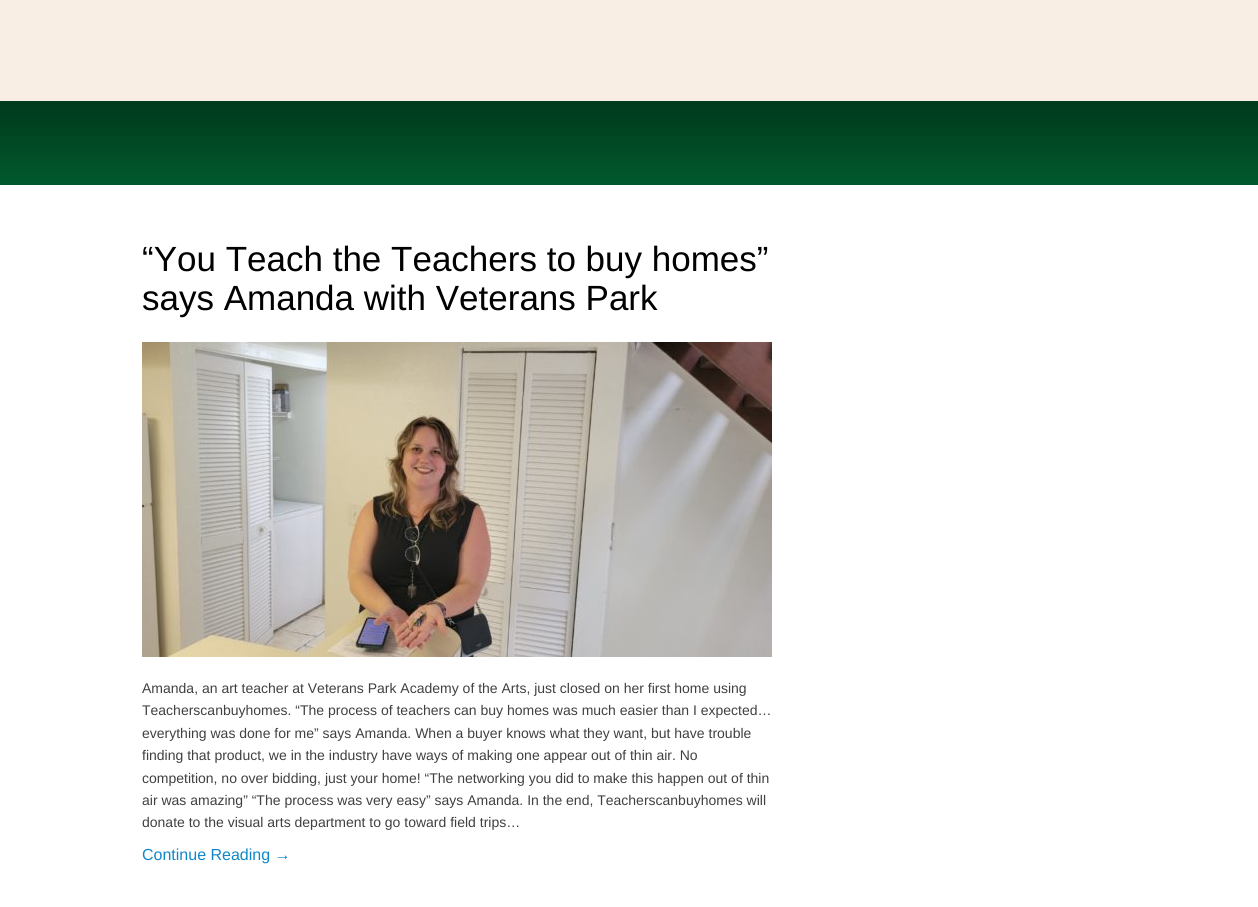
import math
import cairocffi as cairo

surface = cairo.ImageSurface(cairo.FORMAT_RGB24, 1258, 907)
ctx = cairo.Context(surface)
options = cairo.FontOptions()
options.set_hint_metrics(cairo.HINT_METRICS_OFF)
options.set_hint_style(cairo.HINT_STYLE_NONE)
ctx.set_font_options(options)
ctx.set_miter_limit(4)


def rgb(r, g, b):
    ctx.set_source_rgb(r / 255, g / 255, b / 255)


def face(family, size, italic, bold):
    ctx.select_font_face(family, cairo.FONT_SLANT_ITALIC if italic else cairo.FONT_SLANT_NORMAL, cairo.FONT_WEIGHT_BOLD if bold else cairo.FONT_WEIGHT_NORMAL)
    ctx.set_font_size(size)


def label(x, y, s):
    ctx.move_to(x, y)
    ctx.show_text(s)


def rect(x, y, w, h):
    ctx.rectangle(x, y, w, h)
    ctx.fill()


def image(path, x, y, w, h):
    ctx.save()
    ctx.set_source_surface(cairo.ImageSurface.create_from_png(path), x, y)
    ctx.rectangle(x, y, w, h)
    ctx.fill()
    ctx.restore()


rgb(255, 255, 255)
ctx.paint()
rgb(248, 238, 227)
rect(0, 0, 1258, 101)
gradient = cairo.LinearGradient(629, 101, 629, 185)
gradient.add_color_stop_rgba(0, 0, 0.224, 0.11, 1)
gradient.add_color_stop_rgba(1, 0.004, 0.349, 0.176, 1)
ctx.set_source(gradient)
rect(0, 101, 1258, 84)
face('Liberation Sans', 35, 0, 0)
rgb(0, 0, 0)
label(142, 271, '“You Teach the Teachers to buy homes”')
label(142, 310, 'says Amanda with Veterans Park')
image('image0.png', 142, 342, 630, 315)
face('Liberation Sans', 14, 0, 0)
rgb(64, 64, 64)
label(142, 693, 'Amanda, an art teacher at Veterans Park Academy of the Arts, just closed on her first home using')
label(142, 715, 'Teacherscanbuyhomes. “The process of teachers can buy homes was much easier than I expected…')
label(142, 738, 'everything was done for me” says Amanda. When a buyer knows what they want, but have trouble')
label(142, 760, 'finding that product, we in the industry have ways of making one appear out of thin air. No')
label(142, 783, 'competition, no over bidding, just your home! “The networking you did to make this happen out of thin')
label(142, 805, 'air was amazing” “The process was very easy” says Amanda. In the end, Teacherscanbuyhomes will')
label(142, 827, 'donate to the visual arts department to go toward field trips…')
face('Liberation Sans', 16, 0, 0)
rgb(15, 135, 201)
label(142, 860, 'Continue Reading →')
surface.write_to_png('render.png')
